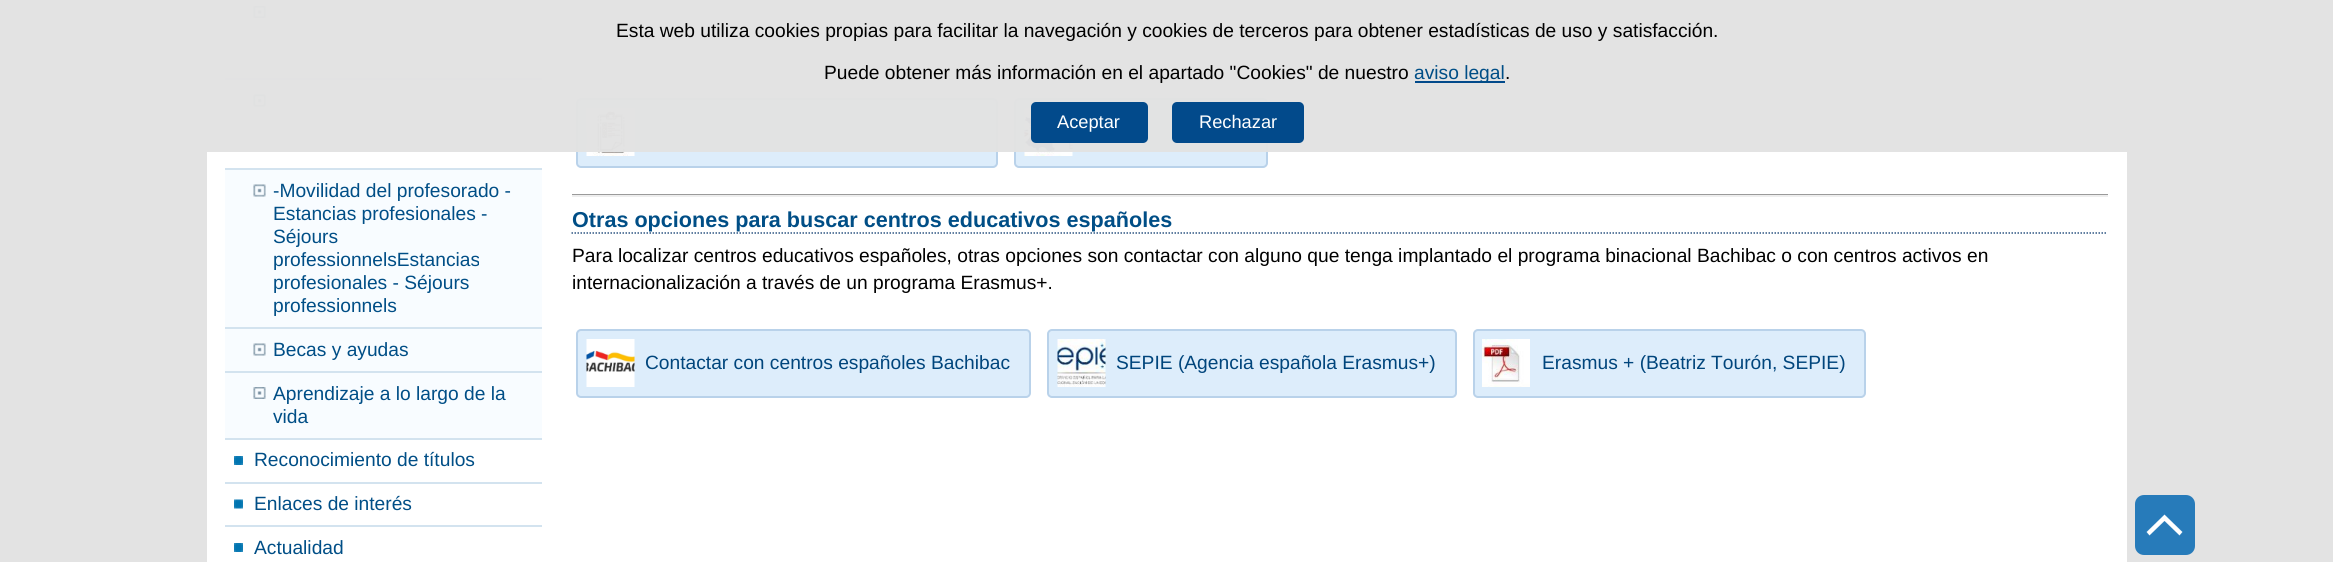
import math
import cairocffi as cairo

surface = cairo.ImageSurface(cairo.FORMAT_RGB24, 2333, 562)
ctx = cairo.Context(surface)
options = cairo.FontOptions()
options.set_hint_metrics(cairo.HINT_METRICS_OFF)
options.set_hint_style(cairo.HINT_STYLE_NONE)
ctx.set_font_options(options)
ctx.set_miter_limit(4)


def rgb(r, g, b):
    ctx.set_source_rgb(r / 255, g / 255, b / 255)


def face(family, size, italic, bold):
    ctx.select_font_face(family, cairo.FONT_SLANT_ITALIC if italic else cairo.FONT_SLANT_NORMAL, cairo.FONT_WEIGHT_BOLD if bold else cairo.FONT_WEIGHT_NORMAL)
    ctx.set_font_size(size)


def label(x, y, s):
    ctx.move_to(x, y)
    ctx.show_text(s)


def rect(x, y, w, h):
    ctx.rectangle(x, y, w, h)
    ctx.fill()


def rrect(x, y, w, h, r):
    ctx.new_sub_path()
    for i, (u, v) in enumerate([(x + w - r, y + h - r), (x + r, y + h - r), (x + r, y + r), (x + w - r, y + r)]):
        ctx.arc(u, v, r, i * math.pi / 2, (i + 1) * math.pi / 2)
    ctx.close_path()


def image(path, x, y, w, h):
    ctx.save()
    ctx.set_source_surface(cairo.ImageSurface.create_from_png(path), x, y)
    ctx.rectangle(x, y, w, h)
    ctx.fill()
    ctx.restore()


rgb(227, 227, 227)
ctx.paint()
rgb(255, 255, 255)
rect(207, 0, 1920, 562)
rgb(248, 252, 255)
rect(225, 0, 317, 438)
image('image0.png', 253, 6, 13, 12)
rgb(211, 227, 239)
rect(225, 78, 317, 2)
rgb(255, 255, 255)
rect(225, 80, 317, 88)
image('image1.png', 253, 94, 13, 13)
rgb(221, 237, 251)
rrect(577, 99, 420, 68, 4)
ctx.fill_preserve()
rgb(185, 210, 234)
ctx.stroke()
image('image5.png', 586, 108, 49, 48)
rgb(221, 237, 251)
rrect(1015, 99, 252, 68, 4)
ctx.fill_preserve()
rgb(185, 210, 234)
ctx.stroke()
image('image6.png', 1024, 108, 49, 48)
ctx.set_source_rgba(0.886, 0.886, 0.886, 0.97)
rect(207, 0, 1920, 152)
face('Liberation Sans', 19.2, 0, 0)
rgb(0, 0, 0)
label(616, 37, 'Esta web utiliza cookies propias para facilitar la navegación y cookies de terceros para obtener estadísticas de uso y satisfacción.')
label(824, 79, 'Puede obtener más información en el apartado "Cookies" de nuestro')
rgb(2, 74, 139)
rect(1415, 81, 90, 2)
rgb(0, 78, 134)
label(1414, 79, 'aviso legal')
rgb(0, 0, 0)
label(1505, 79, '.')
rgb(2, 74, 139)
rrect(1031, 102, 117, 41, 5)
ctx.fill()
face('Liberation Sans', 18.25, 0, 0)
rgb(255, 255, 255)
label(1057, 128, 'Aceptar')
rgb(2, 74, 139)
rrect(1172, 102, 132, 41, 5)
ctx.fill()
rgb(255, 255, 255)
label(1199, 128, 'Rechazar')
rgb(211, 227, 239)
rect(225, 168, 317, 2)
image('image2.png', 253, 184, 13, 13)
rect(225, 327, 317, 2)
face('Liberation Sans', 19.2, 0, 0)
rgb(0, 78, 134)
label(273, 197, '-Movilidad del profesorado -')
label(273, 220, 'Estancias profesionales -')
label(273, 243, 'Séjours')
label(273, 266, 'professionnelsEstancias')
label(273, 289, 'profesionales - Séjours')
label(273, 312, 'professionnels')
image('image2.png', 253, 343, 13, 13)
rgb(211, 227, 239)
rect(225, 371, 317, 2)
rgb(0, 78, 134)
label(273, 356, 'Becas y ayudas')
image('image0.png', 253, 387, 13, 12)
rgb(211, 227, 239)
rect(225, 438, 317, 2)
rgb(0, 78, 134)
label(273, 400, 'Aprendizaje a lo largo de la')
label(273, 423, 'vida')
image('image3.png', 234, 456, 9, 9)
rgb(211, 227, 239)
rect(225, 482, 317, 2)
rgb(0, 78, 134)
label(254, 466, 'Reconocimiento de títulos')
image('image4.png', 234, 499, 9, 10)
rgb(211, 227, 239)
rect(225, 525, 317, 2)
rgb(0, 78, 134)
label(254, 510, 'Enlaces de interés')
image('image3.png', 234, 543, 9, 9)
label(254, 554, 'Actualidad')
rgb(154, 154, 154)
rect(572, 194, 1536, 1)
rgb(238, 238, 238)
rect(572, 195, 1536, 2)
ctx.new_path()
ctx.move_to(571.5, 233)
ctx.line_to(2107.5, 233)
rgb(45, 85, 130)
ctx.set_line_width(1.5)
ctx.set_dash([1.5, 1.5])
ctx.stroke()
face('Liberation Sans', 21.6, 0, 1)
rgb(0, 78, 134)
label(572, 227, 'Otras opciones para buscar centros educativos españoles')
face('Liberation Sans', 19.2, 0, 0)
rgb(0, 0, 0)
label(572, 262, 'Para localizar centros educativos españoles, otras opciones son contactar con alguno que tenga implantado el programa binacional Bachibac o con centros activos en')
label(572, 289, 'internacionalización a través de un programa Erasmus+.')
rgb(221, 237, 251)
rrect(577, 330, 453, 67, 4)
ctx.fill_preserve()
rgb(185, 210, 234)
ctx.set_line_width(2)
ctx.set_dash([])
ctx.stroke()
image('image7.png', 586, 339, 49, 48)
rgb(0, 69, 124)
label(645, 369, 'Contactar con centros españoles Bachibac')
rgb(221, 237, 251)
rrect(1048, 330, 408, 67, 4)
ctx.fill_preserve()
rgb(185, 210, 234)
ctx.stroke()
image('image8.png', 1057, 339, 49, 48)
rgb(0, 69, 124)
label(1116, 369, 'SEPIE (Agencia española Erasmus+)')
rgb(221, 237, 251)
rrect(1474, 330, 391, 67, 4)
ctx.fill_preserve()
rgb(185, 210, 234)
ctx.stroke()
image('image9.png', 1482, 339, 48, 48)
rgb(0, 69, 124)
label(1542, 369, 'Erasmus + (Beatriz Tourón, SEPIE)')
rgb(39, 123, 186)
rrect(2136.5, 496.5, 57, 57, 7.5)
ctx.fill_preserve()
ctx.set_line_width(3)
ctx.stroke()
rgb(255, 255, 255)
ctx.new_path()
ctx.move_to(2182.5, 532)
ctx.line_to(2179.5, 535.5)
ctx.line_to(2164.5, 521)
ctx.line_to(2149.5, 535.5)
ctx.line_to(2146.5, 532)
ctx.line_to(2164.5, 514.5)
ctx.close_path()
ctx.fill_preserve()
rgb(39, 123, 186)
ctx.set_line_width(0.1)
ctx.stroke()
surface.write_to_png('render.png')
